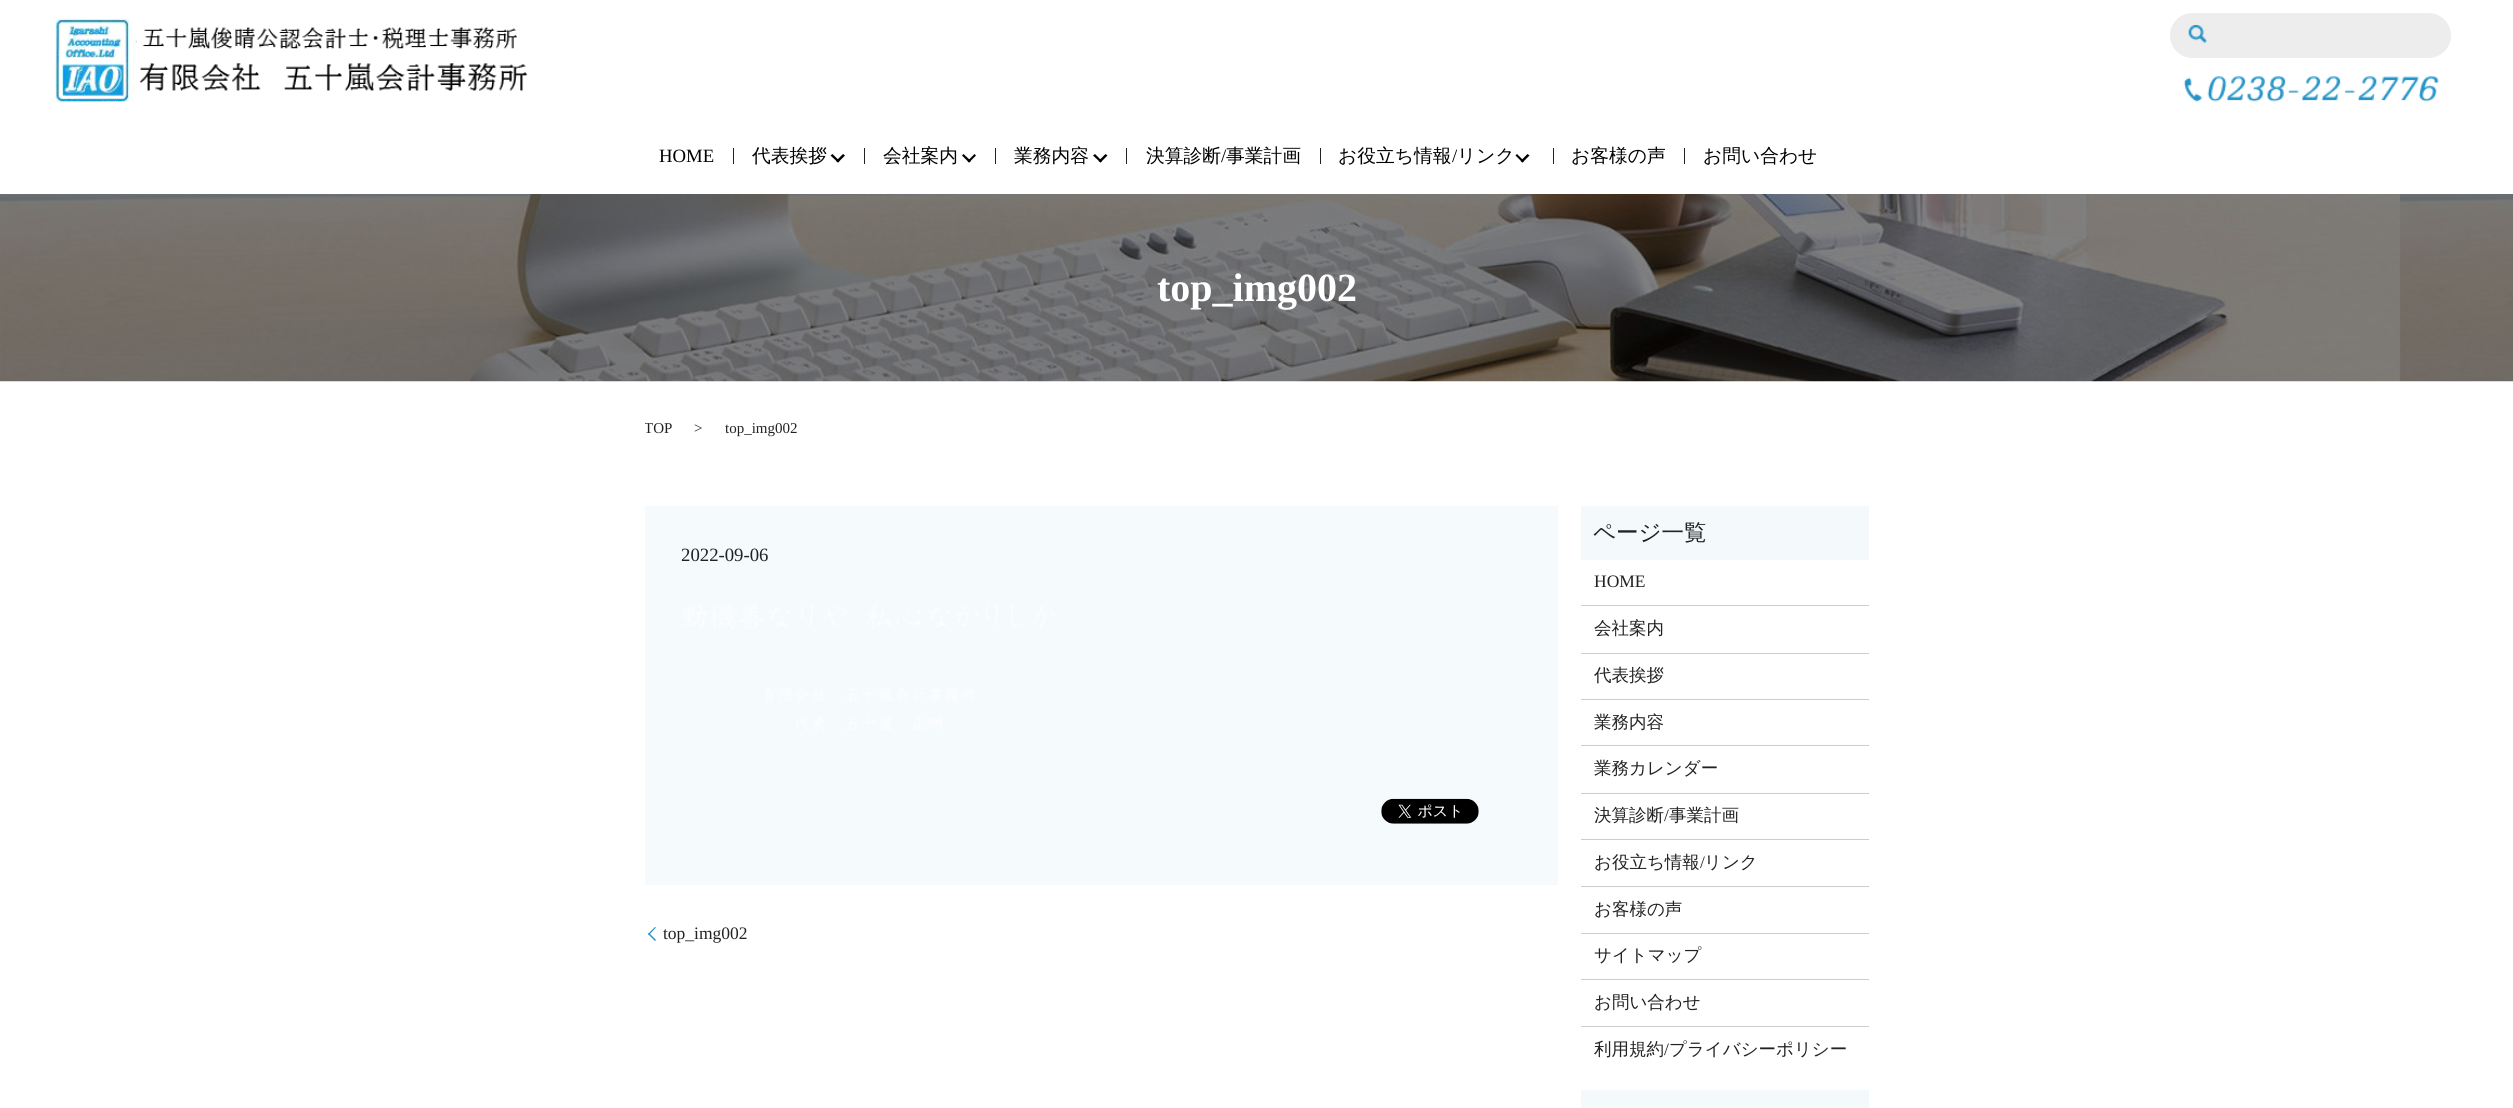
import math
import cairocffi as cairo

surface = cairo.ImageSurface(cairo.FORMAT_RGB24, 2513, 1108)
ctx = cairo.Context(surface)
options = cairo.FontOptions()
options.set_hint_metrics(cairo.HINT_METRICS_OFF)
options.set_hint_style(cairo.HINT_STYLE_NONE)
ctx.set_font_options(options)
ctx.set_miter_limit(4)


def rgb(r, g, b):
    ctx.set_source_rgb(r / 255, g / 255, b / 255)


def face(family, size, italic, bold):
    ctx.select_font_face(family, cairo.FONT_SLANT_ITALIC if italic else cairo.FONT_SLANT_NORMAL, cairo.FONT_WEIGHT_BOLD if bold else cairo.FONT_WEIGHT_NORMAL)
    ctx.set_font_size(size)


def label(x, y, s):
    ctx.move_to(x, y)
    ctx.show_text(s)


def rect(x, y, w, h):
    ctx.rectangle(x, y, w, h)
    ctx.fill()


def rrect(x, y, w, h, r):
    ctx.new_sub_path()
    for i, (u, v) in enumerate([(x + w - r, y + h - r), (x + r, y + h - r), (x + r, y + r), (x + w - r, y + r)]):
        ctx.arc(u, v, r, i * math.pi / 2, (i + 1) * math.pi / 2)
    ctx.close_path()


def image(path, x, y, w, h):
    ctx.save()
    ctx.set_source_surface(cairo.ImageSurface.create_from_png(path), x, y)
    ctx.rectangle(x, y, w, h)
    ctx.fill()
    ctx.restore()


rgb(255, 255, 255)
ctx.paint()
image('image0.png', 55, 18, 473, 84)
image('image1.png', 2183, 76, 256, 26)
rgb(237, 237, 237)
rrect(2171.5, 14.5, 278, 42, 21)
ctx.fill_preserve()
ctx.set_line_width(3)
ctx.stroke()
image('image2.png', 2188, 25, 19, 18)
face('Liberation Serif', 18.75, 0, 0)
rgb(0, 0, 0)
label(659, 162, 'HOME')
rgb(34, 34, 34)
rect(733, 148, 1, 16)
face('WenQuanYi Zen Hei Medium', 18.75, 0, 0)
rgb(0, 0, 0)
label(752, 162, '代表挨拶')
ctx.new_path()
ctx.move_to(845, 155.5)
ctx.line_to(838, 162.5)
ctx.line_to(836, 161)
ctx.line_to(843, 154)
ctx.close_path()
ctx.fill()
ctx.new_path()
ctx.move_to(839.5, 161)
ctx.line_to(838, 162.5)
ctx.line_to(830.5, 155.5)
ctx.line_to(832.5, 154)
ctx.close_path()
ctx.fill()
rgb(34, 34, 34)
rect(864, 148, 1, 16)
rgb(0, 0, 0)
label(883, 162, '会社案内')
ctx.new_path()
ctx.move_to(976, 155.5)
ctx.line_to(969, 162.5)
ctx.line_to(967.5, 161)
ctx.line_to(974.5, 154)
ctx.close_path()
ctx.fill()
ctx.new_path()
ctx.move_to(971, 161)
ctx.line_to(969, 162.5)
ctx.line_to(962, 155.5)
ctx.line_to(963.5, 154)
ctx.close_path()
ctx.fill()
rgb(34, 34, 34)
rect(995, 148, 1, 16)
rgb(0, 0, 0)
label(1014, 162, '業務内容')
ctx.new_path()
ctx.move_to(1107.5, 155.5)
ctx.line_to(1100.5, 162.5)
ctx.line_to(1098.5, 161)
ctx.line_to(1105.5, 154)
ctx.close_path()
ctx.fill()
ctx.new_path()
ctx.move_to(1102, 161)
ctx.line_to(1100.5, 162.5)
ctx.line_to(1093, 155.5)
ctx.line_to(1095, 154)
ctx.close_path()
ctx.fill()
rgb(34, 34, 34)
rect(1126, 148, 1, 16)
rgb(0, 0, 0)
label(1146, 162, '決算診断')
face('Liberation Serif', 18.75, 0, 0)
label(1221, 162, '/')
face('WenQuanYi Zen Hei Medium', 18.75, 0, 0)
label(1226, 162, '事業計画')
rgb(34, 34, 34)
rect(1320, 148, 1, 16)
rgb(0, 0, 0)
label(1338, 162, 'お役立ち情報')
face('Liberation Serif', 18.75, 0, 0)
label(1452, 162, '/')
face('WenQuanYi Zen Hei Medium', 18.75, 0, 0)
label(1457, 162, 'リンク')
ctx.new_path()
ctx.move_to(1529.5, 155.5)
ctx.line_to(1522.5, 162.5)
ctx.line_to(1520.5, 161)
ctx.line_to(1527.5, 154)
ctx.close_path()
ctx.fill()
ctx.new_path()
ctx.move_to(1524, 161)
ctx.line_to(1522.5, 162.5)
ctx.line_to(1515.5, 155.5)
ctx.line_to(1517, 154)
ctx.close_path()
ctx.fill()
rgb(34, 34, 34)
rect(1553, 148, 1, 16)
rgb(0, 0, 0)
label(1571, 162, 'お客様の声')
rgb(34, 34, 34)
rect(1684, 148, 1, 16)
rgb(0, 0, 0)
label(1703, 162, 'お問い合わせ')
image('image3.png', 0, 194, 2513, 188)
face('Liberation Serif', 40, 0, 1)
rgb(255, 255, 255)
label(1157, 301, 'top_img002')
ctx.save()
ctx.rectangle(645, 401, 1225, 54)
ctx.clip()
face('Liberation Serif', 15, 0, 0)
rgb(34, 34, 34)
label(644, 433, 'TOP')
ctx.restore()
face('Liberation Serif', 15, 0, 0)
rgb(34, 34, 34)
label(694, 433, '>')
label(725, 433, 'top_img002')
rgb(245, 250, 253)
rect(645, 506, 913, 379)
face('Liberation Serif', 18.75, 0, 0)
rgb(34, 34, 34)
label(681, 561, '2022-09-06')
image('image4.png', 683, 604, 372, 126)
image('image5.png', 1381, 798, 98, 26)
rgb(35, 146, 199)
ctx.new_path()
ctx.move_to(648, 934)
ctx.line_to(655, 927)
ctx.line_to(656, 927.5)
ctx.line_to(649, 935)
ctx.close_path()
ctx.fill()
face('Liberation Serif', 17.5, 0, 0)
rgb(34, 34, 34)
label(663, 939, 'top_img002')
rgb(35, 146, 199)
ctx.new_path()
ctx.move_to(655, 941)
ctx.line_to(648, 934)
ctx.line_to(649, 933)
ctx.line_to(656, 940)
ctx.close_path()
ctx.fill()
rgb(244, 250, 252)
rect(1581, 506, 288, 54)
face('WenQuanYi Zen Hei Medium', 22.5, 0, 0)
rgb(34, 34, 34)
label(1593, 540, 'ページ一覧')
rgb(204, 204, 204)
rect(1581, 605, 288, 1)
face('Liberation Serif', 17.5, 0, 0)
rgb(34, 34, 34)
label(1594, 587, 'HOME')
rgb(204, 204, 204)
rect(1581, 653, 288, 1)
face('WenQuanYi Zen Hei Medium', 17.5, 0, 0)
rgb(34, 34, 34)
label(1594, 634, '会社案内')
rgb(204, 204, 204)
rect(1581, 699, 288, 1)
rgb(34, 34, 34)
label(1594, 681, '代表挨拶')
rgb(204, 204, 204)
rect(1581, 745, 288, 1)
rgb(34, 34, 34)
label(1594, 728, '業務内容')
rgb(204, 204, 204)
rect(1581, 793, 288, 1)
rgb(34, 34, 34)
label(1594, 774, '業務カレンダー')
rgb(204, 204, 204)
rect(1581, 839, 288, 1)
rgb(34, 34, 34)
label(1594, 821, '決算診断')
face('Liberation Serif', 17.5, 0, 0)
label(1664, 821, '/')
face('WenQuanYi Zen Hei Medium', 17.5, 0, 0)
label(1669, 821, '事業計画')
rgb(204, 204, 204)
rect(1581, 886, 288, 1)
rgb(34, 34, 34)
label(1594, 868, 'お役立ち情報')
face('Liberation Serif', 17.5, 0, 0)
label(1700, 868, '/')
face('WenQuanYi Zen Hei Medium', 17.5, 0, 0)
label(1704, 868, 'リンク')
rgb(204, 204, 204)
rect(1581, 933, 288, 1)
rgb(34, 34, 34)
label(1594, 915, 'お客様の声')
rgb(204, 204, 204)
rect(1581, 979, 288, 1)
rgb(34, 34, 34)
label(1594, 961, 'サイトマップ')
rgb(204, 204, 204)
rect(1581, 1026, 288, 1)
rgb(34, 34, 34)
label(1594, 1008, 'お問い合わせ')
label(1594, 1055, '利用規約')
face('Liberation Serif', 17.5, 0, 0)
label(1664, 1055, '/')
face('WenQuanYi Zen Hei Medium', 17.5, 0, 0)
label(1669, 1055, 'プライバシーポリシー')
rgb(244, 250, 252)
rect(1581, 1090, 288, 18)
surface.write_to_png('render.png')
